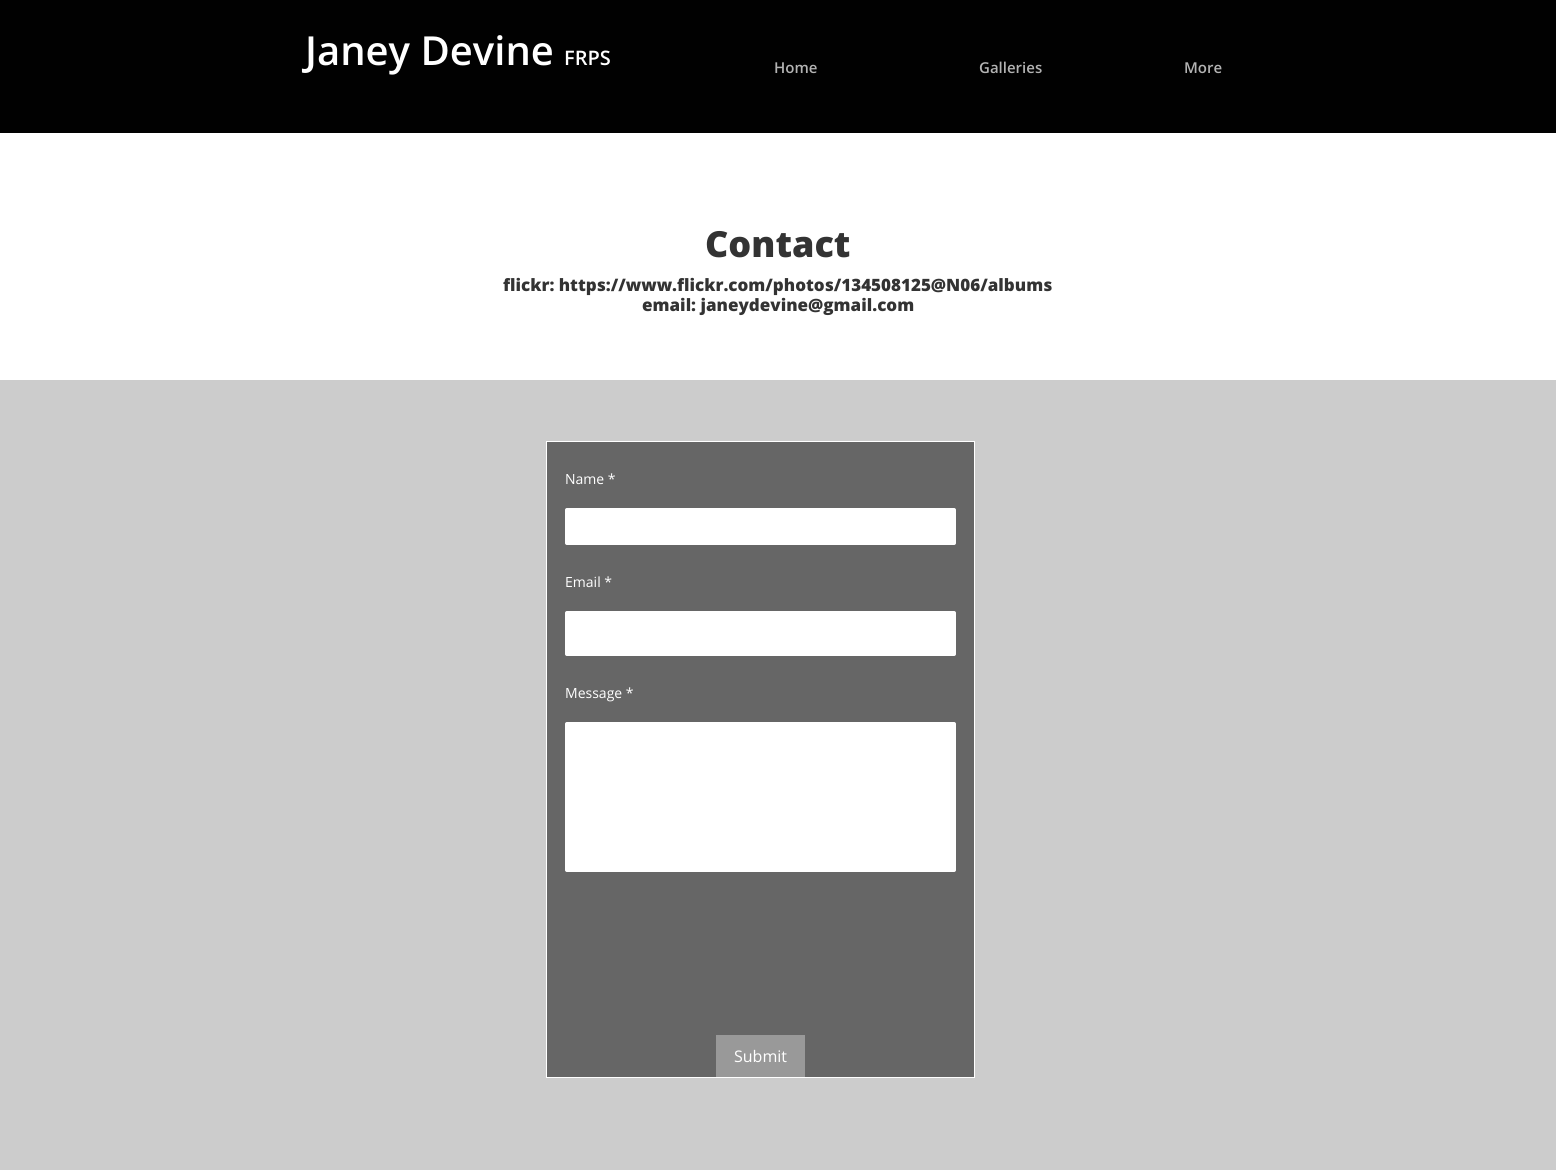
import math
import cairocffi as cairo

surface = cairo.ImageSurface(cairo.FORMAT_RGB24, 1556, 1170)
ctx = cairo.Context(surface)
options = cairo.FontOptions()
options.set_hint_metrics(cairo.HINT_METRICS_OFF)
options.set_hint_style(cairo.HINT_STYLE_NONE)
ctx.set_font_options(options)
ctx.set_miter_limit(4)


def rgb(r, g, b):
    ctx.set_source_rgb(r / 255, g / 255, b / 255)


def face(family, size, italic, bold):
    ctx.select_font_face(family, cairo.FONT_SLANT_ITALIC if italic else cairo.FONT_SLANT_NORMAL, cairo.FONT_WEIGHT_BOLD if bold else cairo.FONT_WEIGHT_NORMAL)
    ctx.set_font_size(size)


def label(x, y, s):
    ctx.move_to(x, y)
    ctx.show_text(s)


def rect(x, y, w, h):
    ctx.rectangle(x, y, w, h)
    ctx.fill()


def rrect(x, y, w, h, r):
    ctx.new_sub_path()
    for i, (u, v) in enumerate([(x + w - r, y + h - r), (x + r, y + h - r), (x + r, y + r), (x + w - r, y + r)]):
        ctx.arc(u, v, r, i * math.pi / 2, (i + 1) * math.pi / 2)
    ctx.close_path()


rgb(255, 255, 255)
ctx.paint()
rgb(1, 1, 1)
rect(0, 0, 1556, 133)
face('Open Sans SemiBold', 40, 0, 0)
rgb(255, 255, 255)
label(305, 65, 'Janey Devine')
face('Open Sans SemiBold', 20, 0, 0)
label(564, 65, 'FRPS')
face('Open Sans SemiBold', 15, 0, 0)
rgb(179, 179, 179)
label(774, 73, 'Home')
label(979, 73, 'Galleries')
label(1184, 73, 'More')
face('Open Sans ExtraBold', 36, 0, 0)
rgb(51, 51, 51)
label(705, 257, 'Contact')
face('Open Sans ExtraBold', 17, 0, 0)
label(503, 291, 'flickr: https://www.flickr.com/photos/134508125@N06/albums')
label(642, 311, 'email: janeydevine@gmail.com')
rgb(204, 204, 204)
rect(0, 380, 1556, 790)
rgb(102, 102, 102)
ctx.rectangle(546.5, 441.5, 428, 636)
ctx.fill_preserve()
rgb(255, 255, 255)
ctx.set_line_width(1)
ctx.stroke()
face('Open Sans', 14, 0, 0)
label(565, 484, 'Name *')
rrect(565.5, 508.5, 390, 36, 1.5)
ctx.fill_preserve()
ctx.stroke()
label(565, 587, 'Email *')
rrect(565.5, 611.5, 390, 44, 1.5)
ctx.fill_preserve()
ctx.stroke()
label(565, 698, 'Message *')
rrect(565.5, 722.5, 390, 149, 1.5)
ctx.fill_preserve()
ctx.stroke()
rgb(153, 153, 153)
rect(716, 1035, 89, 42)
face('Open Sans', 16, 0, 0)
rgb(255, 255, 255)
label(734, 1062, 'Submit')
surface.write_to_png('render.png')
